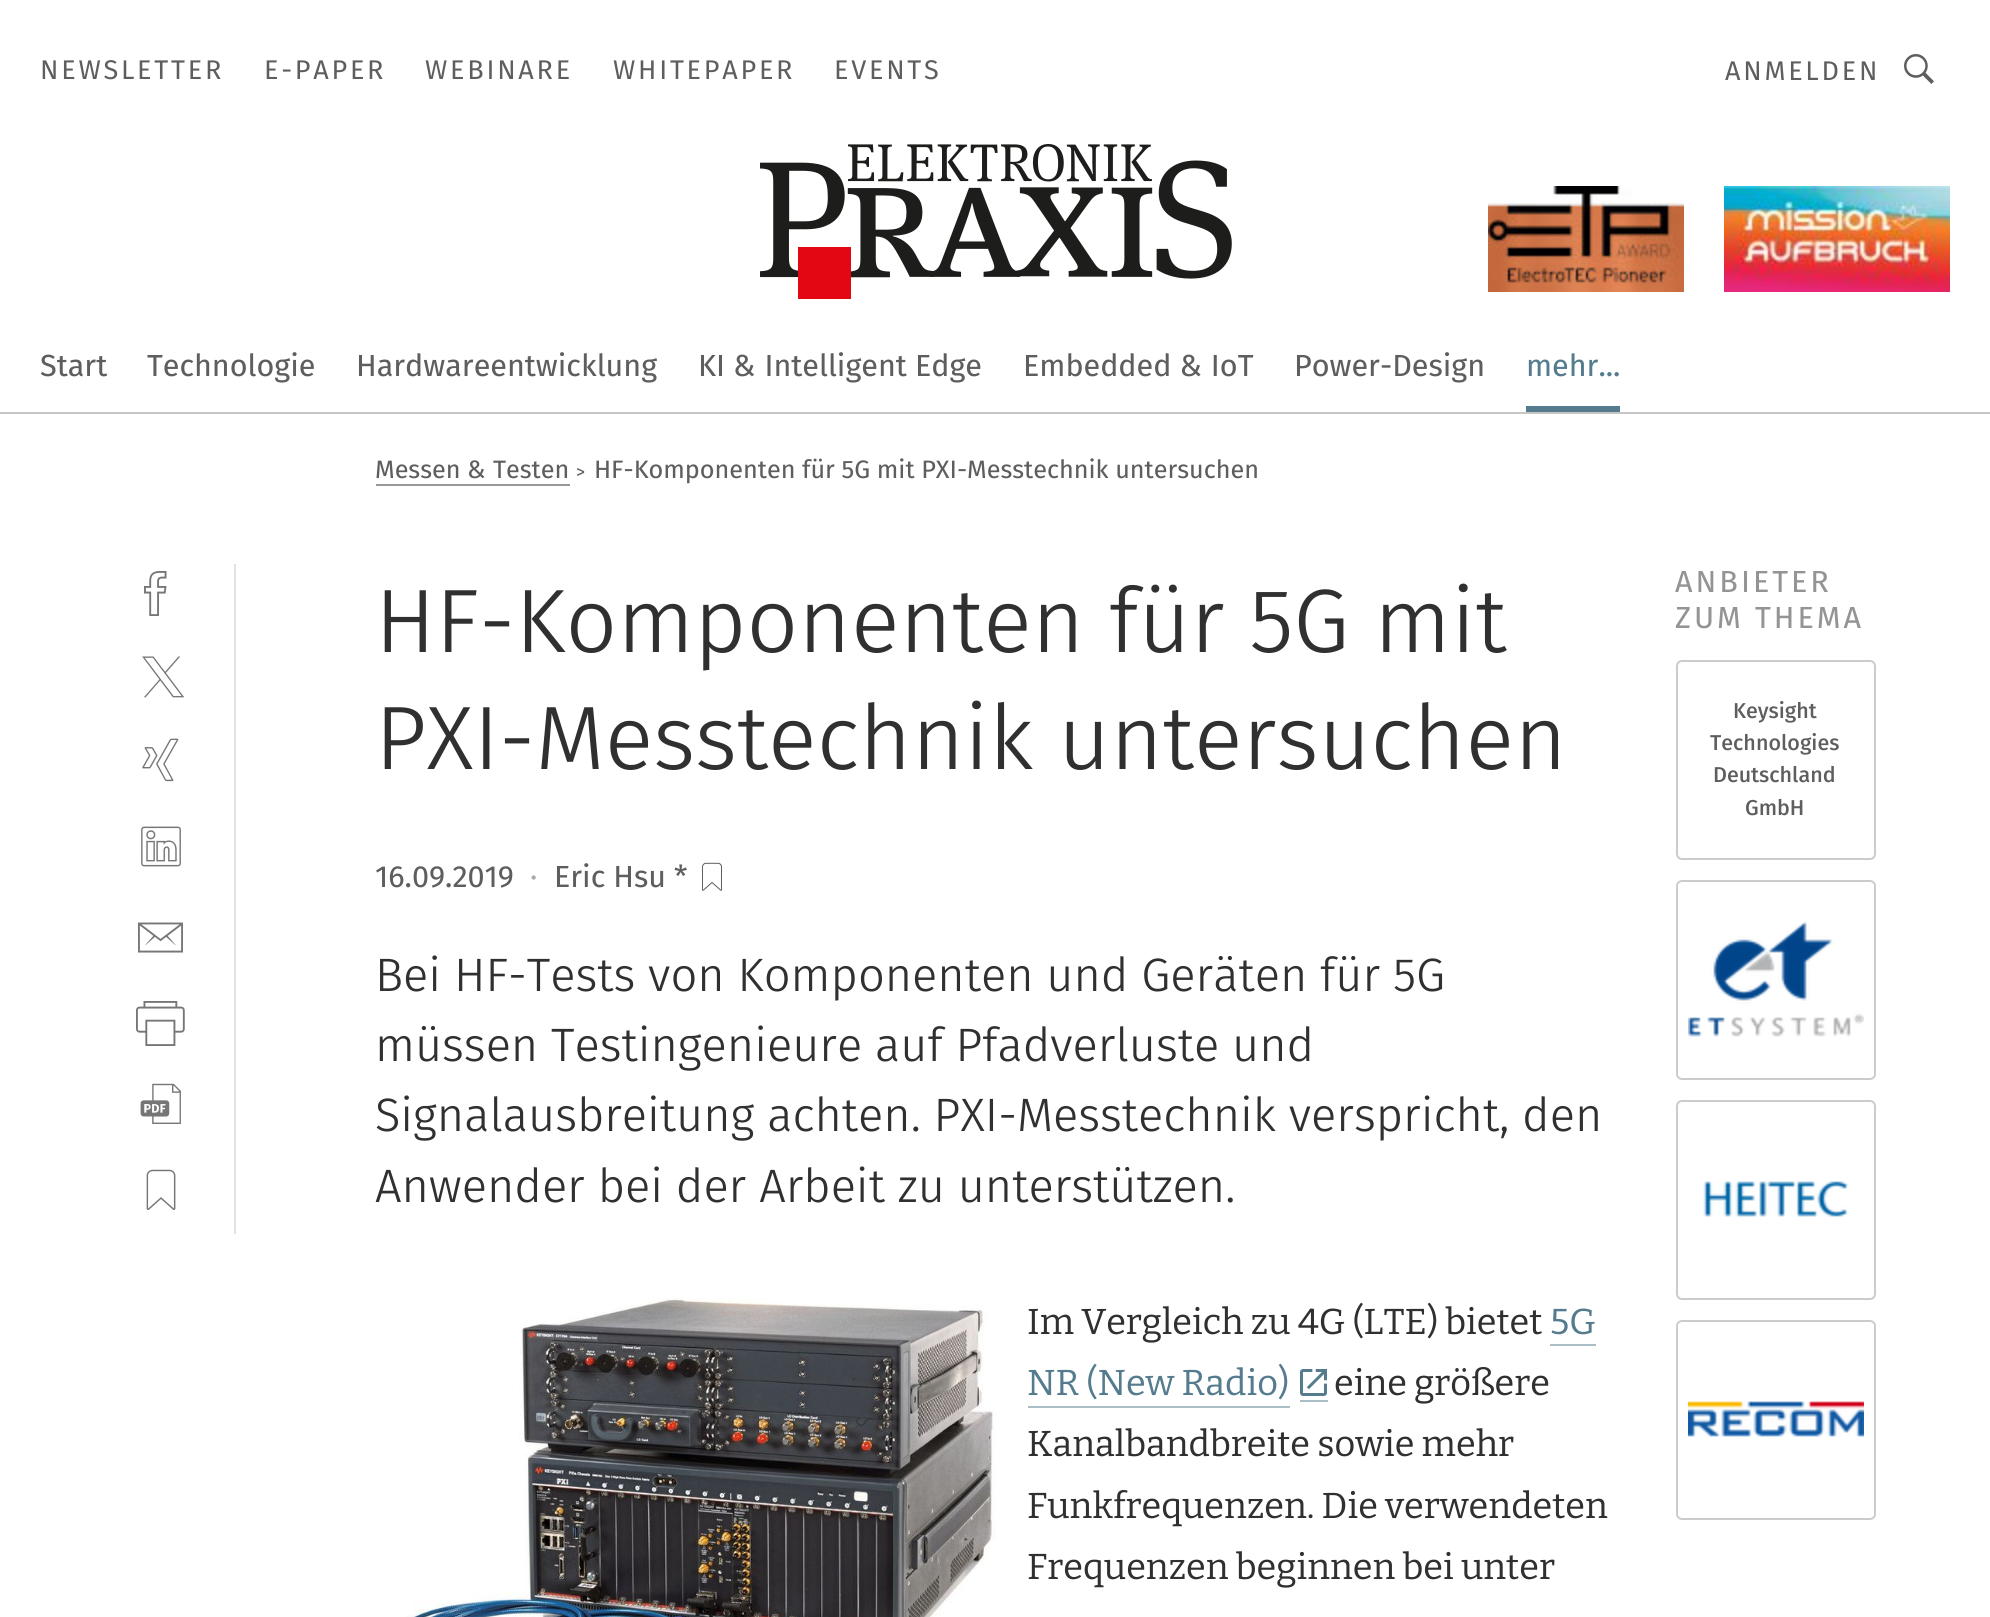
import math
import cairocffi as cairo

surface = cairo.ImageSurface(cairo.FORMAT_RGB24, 1990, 1617)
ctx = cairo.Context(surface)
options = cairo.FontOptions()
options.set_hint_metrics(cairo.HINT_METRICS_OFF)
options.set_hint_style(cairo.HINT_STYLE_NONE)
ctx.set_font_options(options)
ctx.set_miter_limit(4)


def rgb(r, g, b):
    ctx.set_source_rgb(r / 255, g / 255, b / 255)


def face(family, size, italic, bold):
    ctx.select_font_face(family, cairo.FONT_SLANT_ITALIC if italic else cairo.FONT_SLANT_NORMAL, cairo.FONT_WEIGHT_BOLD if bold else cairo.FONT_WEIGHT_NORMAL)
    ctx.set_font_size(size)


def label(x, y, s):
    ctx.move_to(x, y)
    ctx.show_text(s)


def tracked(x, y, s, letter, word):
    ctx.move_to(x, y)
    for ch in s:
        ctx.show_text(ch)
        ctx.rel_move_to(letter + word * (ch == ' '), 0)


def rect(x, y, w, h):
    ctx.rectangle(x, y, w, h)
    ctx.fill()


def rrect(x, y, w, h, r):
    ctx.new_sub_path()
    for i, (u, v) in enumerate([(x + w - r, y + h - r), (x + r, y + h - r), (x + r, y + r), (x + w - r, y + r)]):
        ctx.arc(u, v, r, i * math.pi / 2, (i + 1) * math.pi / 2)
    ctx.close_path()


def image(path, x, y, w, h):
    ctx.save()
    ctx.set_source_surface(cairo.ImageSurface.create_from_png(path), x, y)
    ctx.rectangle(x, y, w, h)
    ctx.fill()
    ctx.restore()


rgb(255, 255, 255)
ctx.paint()
rgb(198, 198, 198)
rect(0, 412, 1990, 2)
face('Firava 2', 27, 0, 0)
rgb(94, 94, 94)
tracked(40, 79, 'NEWSLETTER', 2.75, 0)
tracked(264, 79, 'E-PAPER', 2.75, 0)
tracked(425, 79, 'WEBINARE', 2.75, 0)
tracked(613, 79, 'WHITEPAPER', 2.75, 0)
tracked(834, 79, 'EVENTS', 2.75, 0)
tracked(1725, 80, 'ANMELDEN', 2.75, 0)
image('image0.png', 1904, 54, 30, 30)
image('image1.png', 760, 144, 472, 155)
image('image2.png', 1488, 186, 196, 106)
image('image3.png', 1724, 186, 226, 106)
face('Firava', 30.5, 0, 0)
label(40, 376, 'Start')
label(147, 376, 'Technologie')
label(356, 376, 'Hardwareentwicklung')
label(698, 376, 'KI & Intelligent Edge')
label(1023, 376, 'Embedded & IoT')
label(1294, 376, 'Power-Design')
rgb(84, 124, 142)
rect(1526, 406, 94, 6)
label(1526, 376, 'mehr...')
face('Firava', 25.2, 0, 0)
rgb(94, 94, 94)
label(375, 478, 'Messen & Testen')
rgb(152, 152, 152)
rect(376, 484, 194, 2)
face('Firava', 18, 0, 0)
rgb(94, 94, 94)
label(576, 478, '>')
face('Firava', 25.2, 0, 0)
label(594, 478, 'HF-Komponenten für 5G mit PXI-Messtechnik untersuchen')
rgb(226, 226, 226)
rect(234, 564, 2, 670)
image('image4.png', 144, 571, 23, 45)
image('image5.png', 142, 656, 43, 42)
image('image6.png', 142, 738, 37, 44)
image('image7.png', 141, 826, 40, 41)
image('image8.png', 138, 922, 45, 31)
image('image9.png', 136, 1001, 49, 45)
image('image10.png', 140, 1083, 41, 41)
image('image11.png', 146, 1169, 30, 41)
face('Firava Light', 90, 0, 0)
rgb(48, 48, 48)
label(375, 652, 'HF-Komponenten für 5G mit')
label(375, 769, 'PXI-Messtechnik untersuchen')
face('Firava', 30.5, 0, 0)
rgb(148, 148, 148)
tracked(1675, 592, 'ANBIETER', 3, 0)
tracked(1675, 628, 'ZUM THEMA', 3, 0)
rrect(1677, 661, 198, 198, 5)
rgb(204, 204, 204)
ctx.stroke()
face('Firava Medium', 21.5, 0, 0)
rgb(94, 94, 94)
label(1733, 718, 'Keysight')
label(1710, 750, 'Technologies')
label(1713, 782, 'Deutschland')
label(1745, 815, 'GmbH')
rrect(1677, 881, 198, 198, 5)
rgb(204, 204, 204)
ctx.stroke()
image('image12.png', 1688, 921, 176, 116)
rrect(1677, 1101, 198, 198, 5)
ctx.stroke()
image('image13.png', 1703, 1181, 146, 36)
rrect(1677, 1321, 198, 198, 5)
ctx.stroke()
image('image14.png', 1688, 1401, 176, 36)
face('Firava', 30.5, 0, 0)
rgb(94, 94, 94)
label(375, 887, '16.09.2019')
rgb(171, 171, 171)
label(530, 887, '·')
rgb(94, 94, 94)
label(554, 887, 'Eric Hsu *')
image('image15.png', 702, 862, 20, 29)
face('Firava Light', 46.8, 0, 0)
rgb(48, 48, 48)
label(375, 991, 'Bei HF-Tests von Komponenten und Geräten für 5G')
label(375, 1061, 'müssen Testingenieure auf Pfadverluste und')
label(375, 1131, 'Signalausbreitung achten. PXI-Messtechnik verspricht, den')
label(375, 1202, 'Anwender bei der Arbeit zu unterstützen.')
image('image16.png', 406, 1298, 590, 319)
face('Bitter', 36, 0, 0)
label(1027, 1334, 'Im Vergleich zu 4G (LTE) bietet')
rgb(84, 124, 142)
label(1550, 1334, '5G')
rgb(170, 190, 199)
rect(1550, 1344, 46, 2)
rgb(84, 124, 142)
label(1027, 1395, 'NR (New Radio)')
rgb(170, 190, 199)
rect(1028, 1406, 262, 2)
rect(1300, 1400, 28, 2)
image('image17.png', 1300, 1369, 27, 27)
rgb(48, 48, 48)
label(1334, 1395, 'eine größere')
label(1027, 1456, 'Kanalbandbreite sowie mehr')
label(1027, 1518, 'Funkfrequenzen. Die verwendeten')
label(1027, 1579, 'Frequenzen beginnen bei unter')
surface.write_to_png('render.png')
